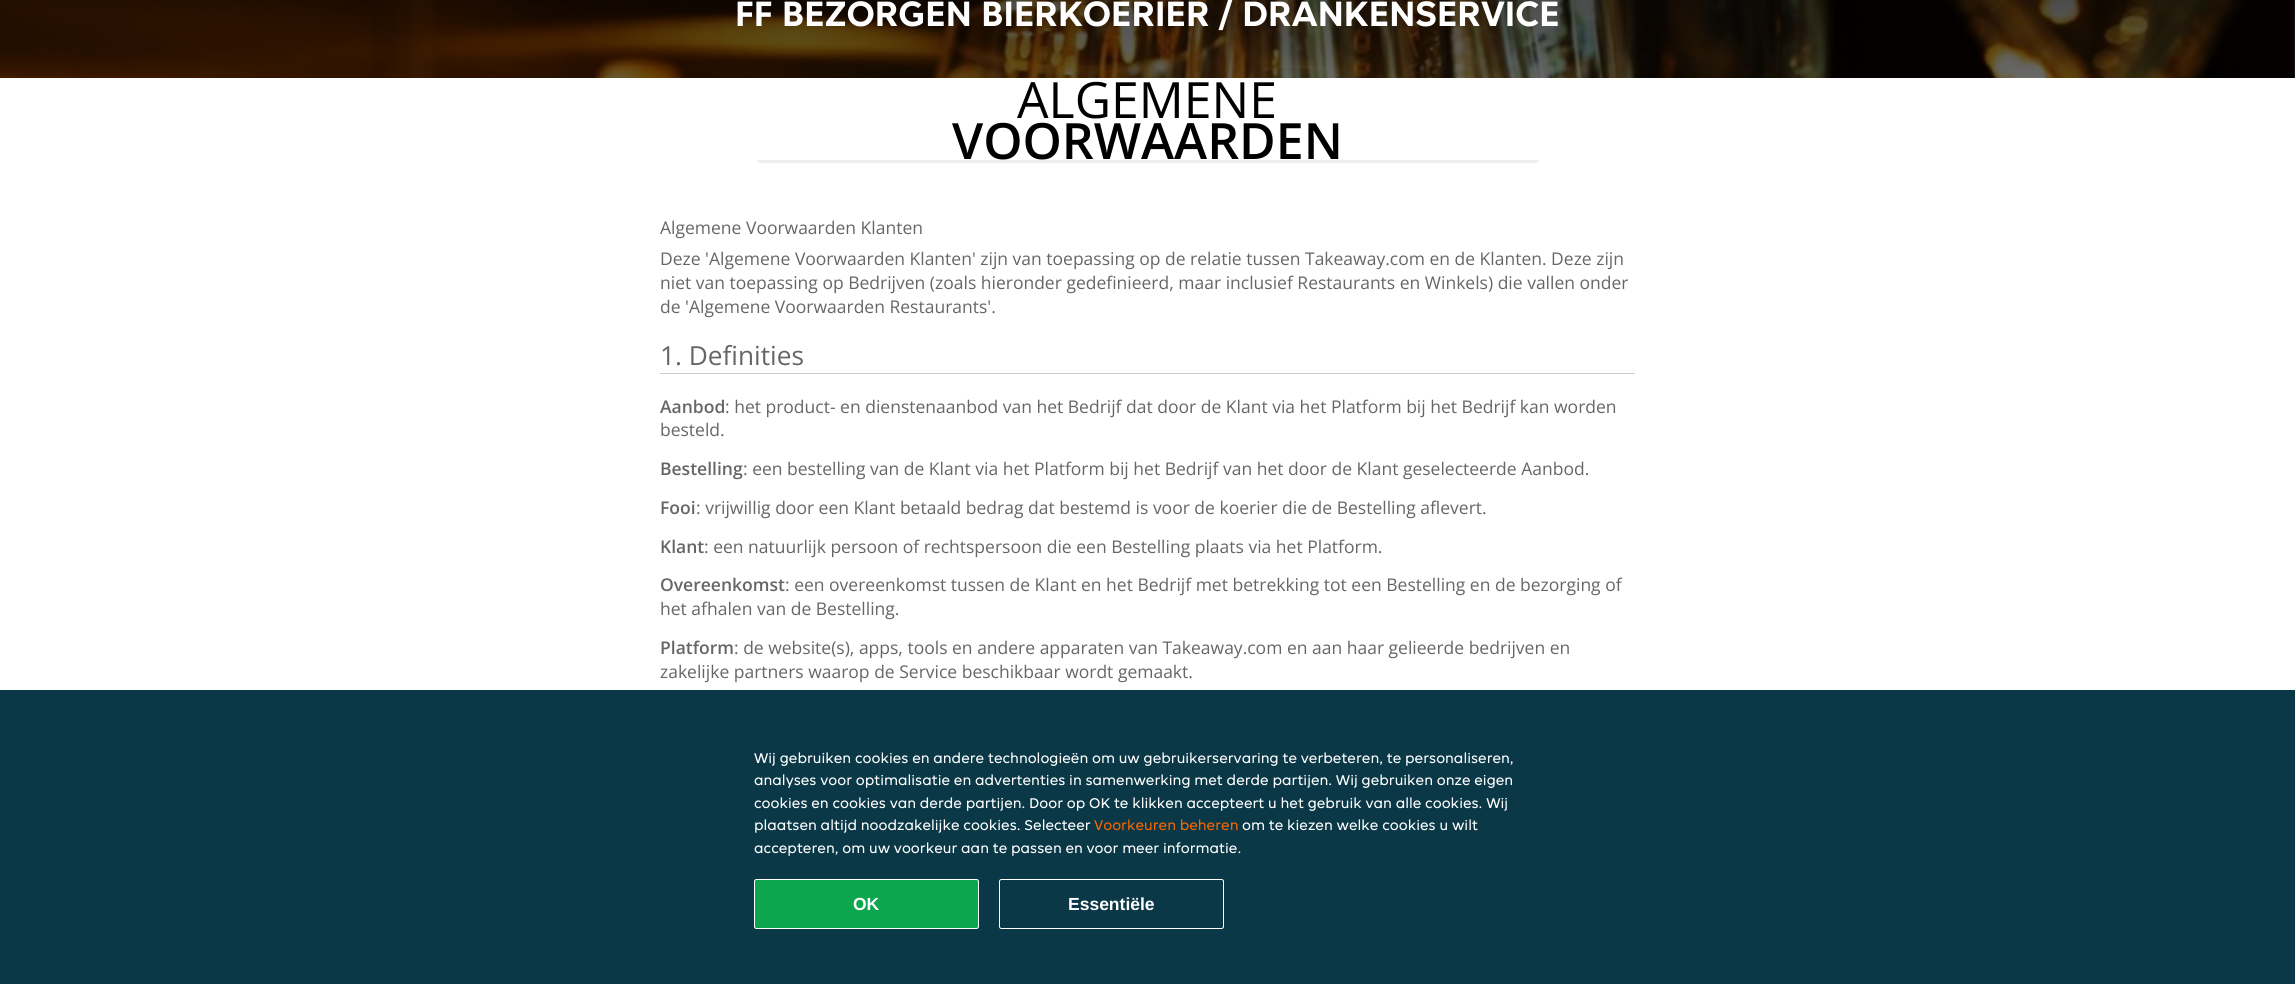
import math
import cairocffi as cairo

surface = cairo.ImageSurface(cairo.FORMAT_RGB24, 2295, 984)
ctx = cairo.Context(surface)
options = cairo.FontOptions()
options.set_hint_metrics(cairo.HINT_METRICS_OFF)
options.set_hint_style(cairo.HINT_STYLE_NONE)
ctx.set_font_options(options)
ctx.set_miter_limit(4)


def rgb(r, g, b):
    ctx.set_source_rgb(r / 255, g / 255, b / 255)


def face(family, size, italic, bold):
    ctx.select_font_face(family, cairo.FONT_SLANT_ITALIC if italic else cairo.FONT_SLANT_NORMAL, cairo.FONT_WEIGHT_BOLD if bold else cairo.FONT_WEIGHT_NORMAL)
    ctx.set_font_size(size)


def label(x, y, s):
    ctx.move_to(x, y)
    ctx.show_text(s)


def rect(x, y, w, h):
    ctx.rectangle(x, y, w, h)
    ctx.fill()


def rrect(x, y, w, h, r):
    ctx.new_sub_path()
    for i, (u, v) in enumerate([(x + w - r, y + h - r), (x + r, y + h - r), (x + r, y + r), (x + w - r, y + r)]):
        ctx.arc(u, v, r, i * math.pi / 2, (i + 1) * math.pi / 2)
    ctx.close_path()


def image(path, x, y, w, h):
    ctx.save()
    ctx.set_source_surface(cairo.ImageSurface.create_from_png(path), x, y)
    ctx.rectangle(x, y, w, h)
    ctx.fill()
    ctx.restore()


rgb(255, 255, 255)
ctx.paint()
image('image0.png', 0, 0, 2295, 78)
gradient = cairo.LinearGradient(1148, 0, 1148, 625)
gradient.add_color_stop_rgba(0, 0, 0, 0, 0.7)
gradient.add_color_stop_rgba(0.33, 0, 0, 0, 0.4)
gradient.add_color_stop_rgba(0.67, 0, 0, 0, 0.2)
gradient.add_color_stop_rgba(1, 0, 0, 0, 0)
ctx.set_source(gradient)
rect(0, 0, 2295, 78)
face('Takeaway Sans', 37.5, 0, 1)
rgb(255, 255, 255)
label(735, 26, 'FF BEZORGEN BIERKOERIER / DRANKENSERVICE')
face('Open Sans', 50, 0, 0)
rgb(0, 0, 0)
label(1017, 118, 'ALGEMENE')
face('Open Sans SemiBold', 50, 0, 0)
label(952, 159, 'VOORWAARDEN')
rgb(238, 238, 238)
rect(758, 160, 780, 3)
face('Open Sans', 17.5, 0, 0)
rgb(102, 102, 102)
label(660, 234, 'Algemene Voorwaarden Klanten')
label(660, 265, 'Deze \'Algemene Voorwaarden Klanten\' zijn van toepassing op de relatie tussen Takeaway.com en de Klanten. Deze zijn')
label(660, 289, 'niet van toepassing op Bedrijven (zoals hieronder gedefinieerd, maar inclusief Restaurants en Winkels) die vallen onder')
label(660, 313, 'de \'Algemene Voorwaarden Restaurants\'.')
rgb(204, 204, 204)
rect(660, 373, 975, 1)
face('Open Sans', 26.25, 0, 0)
rgb(102, 102, 102)
label(660, 365, '1. Definities')
face('Open Sans SemiBold', 17.5, 0, 0)
label(660, 413, 'Aanbod')
face('Open Sans', 17.5, 0, 0)
label(725, 413, ': het product- en dienstenaanbod van het Bedrijf dat door de Klant via het Platform bij het Bedrijf kan worden')
label(660, 436, 'besteld.')
face('Open Sans SemiBold', 17.5, 0, 0)
label(660, 475, 'Bestelling')
face('Open Sans', 17.5, 0, 0)
label(743, 475, ': een bestelling van de Klant via het Platform bij het Bedrijf van het door de Klant geselecteerde Aanbod.')
face('Open Sans SemiBold', 17.5, 0, 0)
label(660, 514, 'Fooi')
face('Open Sans', 17.5, 0, 0)
label(696, 514, ': vrijwillig door een Klant betaald bedrag dat bestemd is voor de koerier die de Bestelling aflevert.')
face('Open Sans SemiBold', 17.5, 0, 0)
label(660, 553, 'Klant')
face('Open Sans', 17.5, 0, 0)
label(704, 553, ': een natuurlijk persoon of rechtspersoon die een Bestelling plaats via het Platform.')
face('Open Sans SemiBold', 17.5, 0, 0)
label(660, 591, 'Overeenkomst')
face('Open Sans', 17.5, 0, 0)
label(785, 591, ': een overeenkomst tussen de Klant en het Bedrijf met betrekking tot een Bestelling en de bezorging of')
label(660, 615, 'het afhalen van de Bestelling.')
face('Open Sans SemiBold', 17.5, 0, 0)
label(660, 654, 'Platform')
face('Open Sans', 17.5, 0, 0)
label(734, 654, ': de website(s), apps, tools en andere apparaten van Takeaway.com en aan haar gelieerde bedrijven en')
label(660, 678, 'zakelijke partners waarop de Service beschikbaar wordt gemaakt.')
rgb(10, 56, 71)
rect(0, 690, 2295, 294)
face('Takeaway Sans', 15, 0, 0)
rgb(255, 255, 255)
label(754, 763, 'Wij gebruiken cookies en andere technologieën om uw gebruikerservaring te verbeteren, te personaliseren,')
label(754, 785, 'analyses voor optimalisatie en advertenties in samenwerking met derde partijen. Wij gebruiken onze eigen')
label(754, 808, 'cookies en cookies van derde partijen. Door op OK te klikken accepteert u het gebruik van alle cookies. Wij')
label(754, 830, 'plaatsen altijd noodzakelijke cookies. Selecteer')
rgb(248, 102, 0)
label(1094, 830, 'Voorkeuren beheren')
rgb(255, 255, 255)
label(1242, 830, 'om te kiezen welke cookies u wilt')
label(754, 853, 'accepteren, om uw voorkeur aan te passen en voor meer informatie.')
rgb(12, 166, 79)
rrect(754.5, 879.5, 224, 49, 2)
ctx.fill_preserve()
rgb(255, 255, 255)
ctx.set_line_width(1)
ctx.stroke()
face('Liberation Sans', 17.5, 0, 1)
label(853, 910, 'OK')
rrect(999.5, 879.5, 224, 49, 2)
ctx.stroke()
label(1068, 910, 'Essentiële')
surface.write_to_png('render.png')
